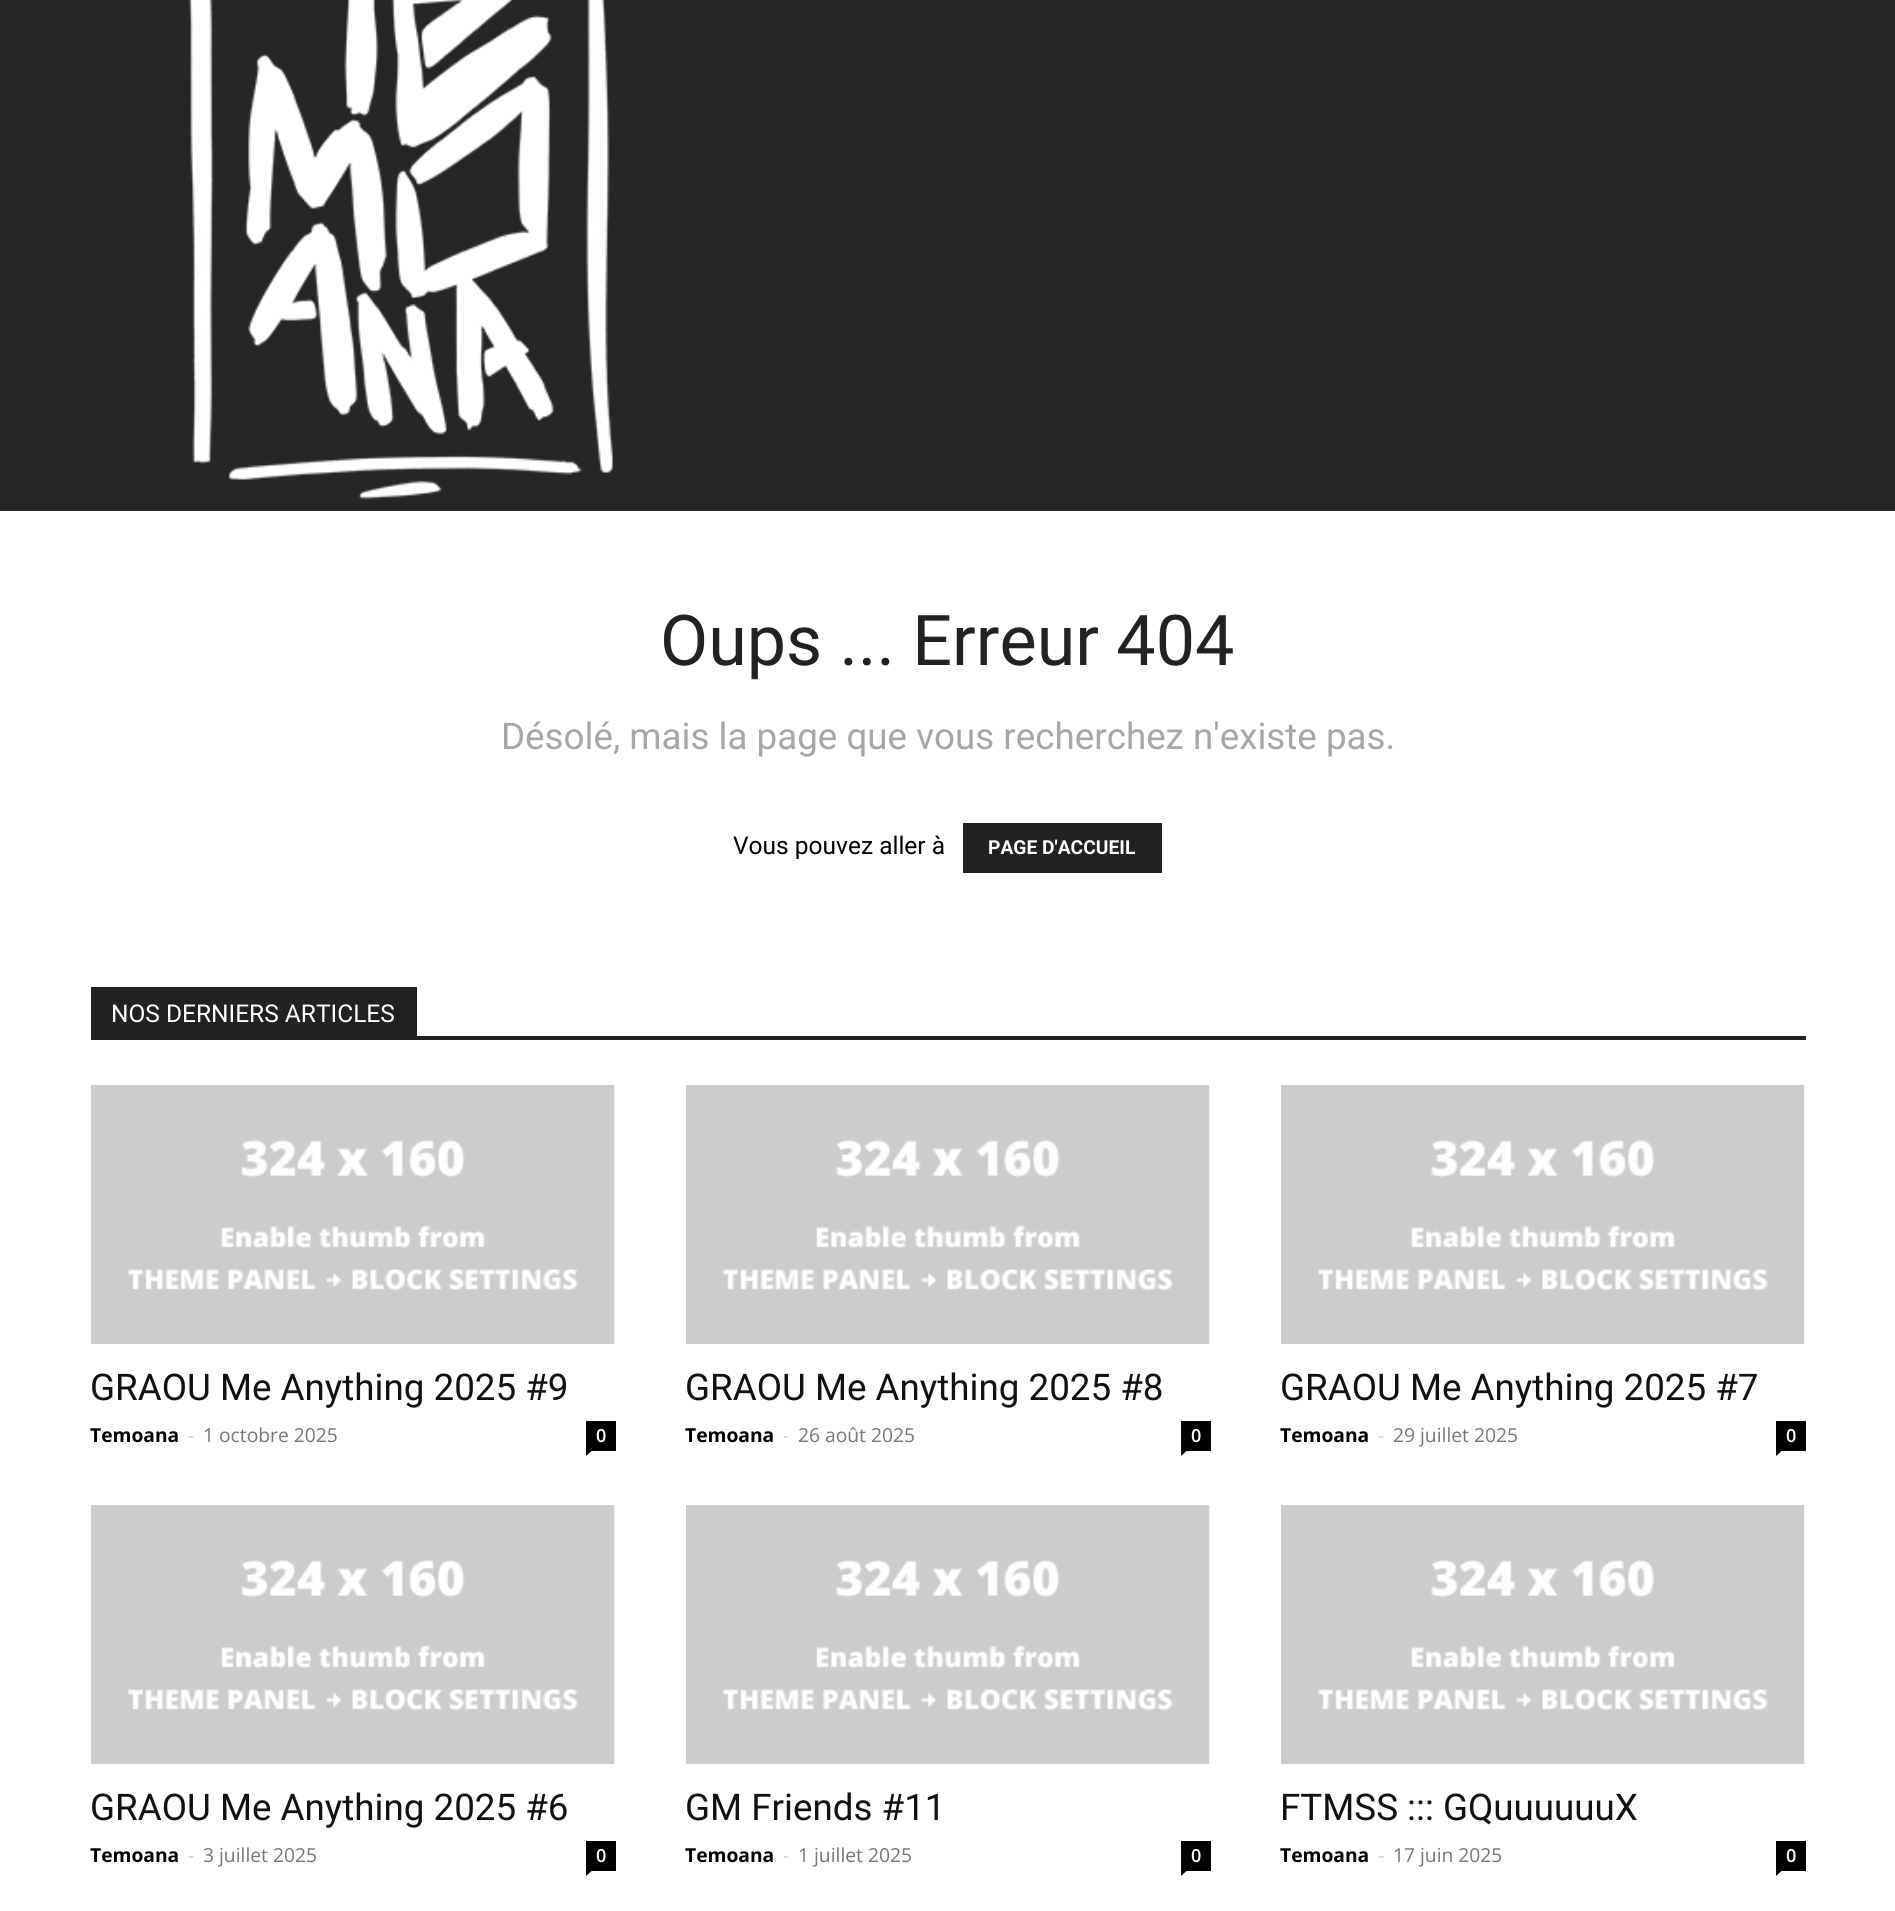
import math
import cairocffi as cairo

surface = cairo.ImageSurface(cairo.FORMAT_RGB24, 1895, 1911)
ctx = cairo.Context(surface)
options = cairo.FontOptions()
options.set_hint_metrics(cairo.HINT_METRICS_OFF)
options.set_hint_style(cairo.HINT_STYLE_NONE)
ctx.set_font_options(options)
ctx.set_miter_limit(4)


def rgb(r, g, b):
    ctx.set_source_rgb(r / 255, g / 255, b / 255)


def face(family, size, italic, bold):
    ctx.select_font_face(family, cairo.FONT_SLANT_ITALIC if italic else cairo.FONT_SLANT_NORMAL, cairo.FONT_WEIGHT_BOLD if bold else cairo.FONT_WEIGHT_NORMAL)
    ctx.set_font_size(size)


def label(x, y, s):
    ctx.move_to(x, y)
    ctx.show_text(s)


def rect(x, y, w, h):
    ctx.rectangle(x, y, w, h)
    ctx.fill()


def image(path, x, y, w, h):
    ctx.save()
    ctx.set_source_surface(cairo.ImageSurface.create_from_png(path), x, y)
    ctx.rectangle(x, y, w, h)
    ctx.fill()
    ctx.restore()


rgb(255, 255, 255)
ctx.paint()
rgb(38, 38, 38)
rect(0, 0, 1895, 511)
image('image0.png', 188, 0, 425, 500)
face('Roboto', 70, 0, 0)
rgb(34, 34, 34)
label(660, 665, 'Oups ... Erreur 404')
face('Roboto', 36.75, 0, 0)
rgb(166, 166, 166)
label(501, 749, 'Désolé, mais la page que vous recherchez n\'existe pas.')
face('Roboto', 24.5, 0, 0)
rgb(0, 0, 0)
label(733, 854, 'Vous pouvez aller à')
rgb(34, 34, 34)
rect(963, 823, 199, 50)
face('Roboto', 19.25, 0, 1)
rgb(255, 255, 255)
label(988, 854, 'PAGE D\'ACCUEIL')
rgb(34, 34, 34)
rect(91, 1036, 1715, 4)
rect(91, 987, 326, 49)
face('Roboto', 24.5, 0, 0)
rgb(255, 255, 255)
label(111, 1022, 'NOS DERNIERS ARTICLES')
image('image1.png', 91, 1085, 524, 259)
face('Roboto', 36.75, 0, 0)
rgb(17, 17, 17)
label(90, 1400, 'GRAOU Me Anything 2025 #9')
face('Open Sans', 19.25, 0, 1)
rgb(0, 0, 0)
label(90, 1442, 'Temoana')
face('Open Sans', 19.25, 0, 0)
rgb(204, 204, 204)
label(188, 1442, '-')
rgb(118, 118, 118)
label(203, 1442, '1 octobre 2025')
rgb(0, 0, 0)
rect(586, 1421, 30, 30)
face('Open Sans SemiBold', 18, 0, 0)
rgb(255, 255, 255)
label(596, 1442, '0')
rgb(0, 0, 0)
ctx.new_path()
ctx.move_to(586, 1451)
ctx.line_to(591.5, 1451)
ctx.line_to(586, 1456)
ctx.close_path()
ctx.fill()
image('image1.png', 686, 1085, 524, 259)
face('Roboto', 36.75, 0, 0)
rgb(17, 17, 17)
label(685, 1400, 'GRAOU Me Anything 2025 #8')
face('Open Sans', 19.25, 0, 1)
rgb(0, 0, 0)
label(685, 1442, 'Temoana')
face('Open Sans', 19.25, 0, 0)
rgb(204, 204, 204)
label(783, 1442, '-')
rgb(118, 118, 118)
label(798, 1442, '26 août 2025')
rgb(0, 0, 0)
rect(1181, 1421, 30, 30)
face('Open Sans SemiBold', 18, 0, 0)
rgb(255, 255, 255)
label(1191, 1442, '0')
rgb(0, 0, 0)
ctx.new_path()
ctx.move_to(1181, 1451)
ctx.line_to(1186.5, 1451)
ctx.line_to(1181, 1456)
ctx.close_path()
ctx.fill()
image('image1.png', 1281, 1085, 524, 259)
face('Roboto', 36.75, 0, 0)
rgb(17, 17, 17)
label(1280, 1400, 'GRAOU Me Anything 2025 #7')
face('Open Sans', 19.25, 0, 1)
rgb(0, 0, 0)
label(1280, 1442, 'Temoana')
face('Open Sans', 19.25, 0, 0)
rgb(204, 204, 204)
label(1378, 1442, '-')
rgb(118, 118, 118)
label(1393, 1442, '29 juillet 2025')
rgb(0, 0, 0)
rect(1776, 1421, 30, 30)
face('Open Sans SemiBold', 18, 0, 0)
rgb(255, 255, 255)
label(1786, 1442, '0')
rgb(0, 0, 0)
ctx.new_path()
ctx.move_to(1776, 1451)
ctx.line_to(1781.5, 1451)
ctx.line_to(1776, 1456)
ctx.close_path()
ctx.fill()
image('image1.png', 91, 1505, 524, 259)
face('Roboto', 36.75, 0, 0)
rgb(17, 17, 17)
label(90, 1820, 'GRAOU Me Anything 2025 #6')
face('Open Sans', 19.25, 0, 1)
rgb(0, 0, 0)
label(90, 1862, 'Temoana')
face('Open Sans', 19.25, 0, 0)
rgb(204, 204, 204)
label(188, 1862, '-')
rgb(118, 118, 118)
label(203, 1862, '3 juillet 2025')
rgb(0, 0, 0)
rect(586, 1841, 30, 30)
face('Open Sans SemiBold', 18, 0, 0)
rgb(255, 255, 255)
label(596, 1862, '0')
rgb(0, 0, 0)
ctx.new_path()
ctx.move_to(586, 1871)
ctx.line_to(591.5, 1871)
ctx.line_to(586, 1876)
ctx.close_path()
ctx.fill()
image('image1.png', 686, 1505, 524, 259)
face('Roboto', 36.75, 0, 0)
rgb(17, 17, 17)
label(685, 1820, 'GM Friends #11')
face('Open Sans', 19.25, 0, 1)
rgb(0, 0, 0)
label(685, 1862, 'Temoana')
face('Open Sans', 19.25, 0, 0)
rgb(204, 204, 204)
label(783, 1862, '-')
rgb(118, 118, 118)
label(798, 1862, '1 juillet 2025')
rgb(0, 0, 0)
rect(1181, 1841, 30, 30)
face('Open Sans SemiBold', 18, 0, 0)
rgb(255, 255, 255)
label(1191, 1862, '0')
rgb(0, 0, 0)
ctx.new_path()
ctx.move_to(1181, 1871)
ctx.line_to(1186.5, 1871)
ctx.line_to(1181, 1876)
ctx.close_path()
ctx.fill()
image('image1.png', 1281, 1505, 524, 259)
face('Roboto', 36.75, 0, 0)
rgb(17, 17, 17)
label(1280, 1820, 'FTMSS ::: GQuuuuuuX')
face('Open Sans', 19.25, 0, 1)
rgb(0, 0, 0)
label(1280, 1862, 'Temoana')
face('Open Sans', 19.25, 0, 0)
rgb(204, 204, 204)
label(1378, 1862, '-')
rgb(118, 118, 118)
label(1393, 1862, '17 juin 2025')
rgb(0, 0, 0)
rect(1776, 1841, 30, 30)
face('Open Sans SemiBold', 18, 0, 0)
rgb(255, 255, 255)
label(1786, 1862, '0')
rgb(0, 0, 0)
ctx.new_path()
ctx.move_to(1776, 1871)
ctx.line_to(1781.5, 1871)
ctx.line_to(1776, 1876)
ctx.close_path()
ctx.fill()
surface.write_to_png('render.png')
